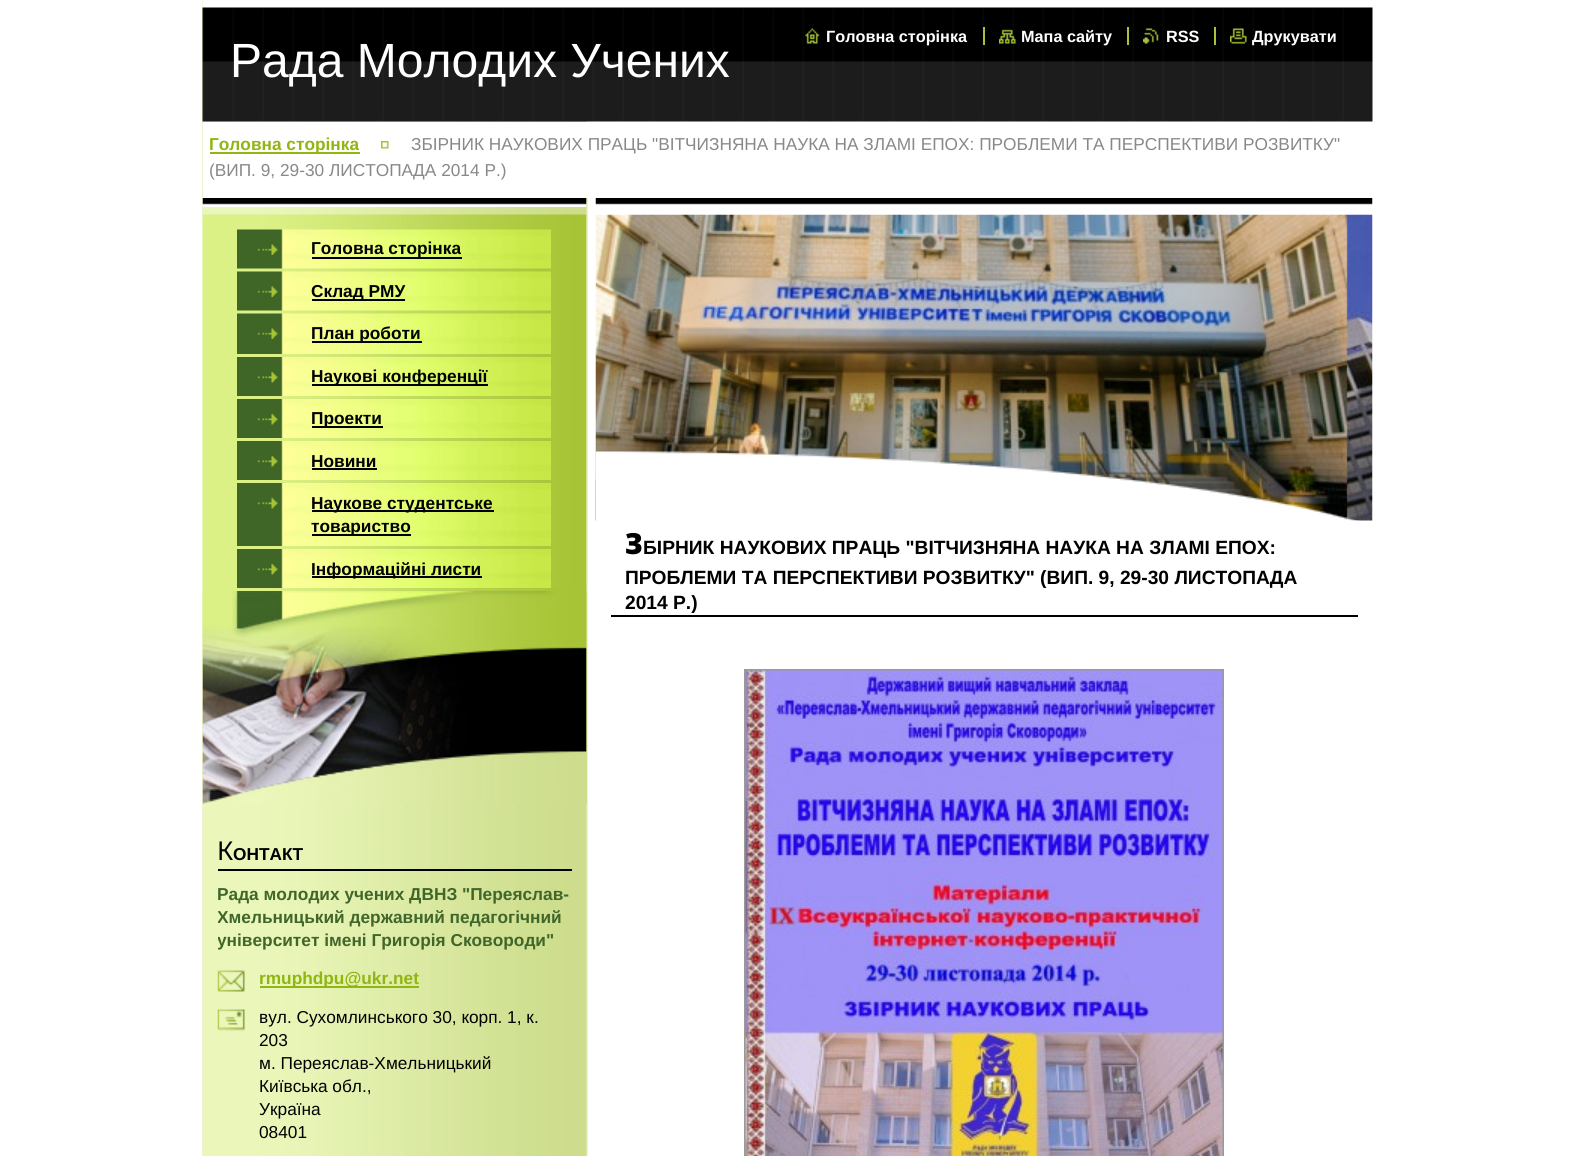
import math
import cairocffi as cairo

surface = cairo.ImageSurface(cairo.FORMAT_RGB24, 1573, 1156)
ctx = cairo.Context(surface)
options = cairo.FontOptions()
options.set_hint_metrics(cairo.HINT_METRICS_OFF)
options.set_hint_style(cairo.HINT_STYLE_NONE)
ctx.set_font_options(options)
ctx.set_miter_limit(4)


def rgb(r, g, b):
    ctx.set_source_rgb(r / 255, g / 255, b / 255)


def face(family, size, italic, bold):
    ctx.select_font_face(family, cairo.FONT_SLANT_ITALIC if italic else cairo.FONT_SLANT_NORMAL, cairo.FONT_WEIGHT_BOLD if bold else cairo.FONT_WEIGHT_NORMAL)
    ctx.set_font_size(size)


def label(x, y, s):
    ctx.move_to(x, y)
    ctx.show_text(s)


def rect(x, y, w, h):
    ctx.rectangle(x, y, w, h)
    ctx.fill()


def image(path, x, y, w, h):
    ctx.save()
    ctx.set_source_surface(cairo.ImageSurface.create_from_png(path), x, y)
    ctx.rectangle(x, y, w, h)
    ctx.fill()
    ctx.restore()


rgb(255, 255, 255)
ctx.paint()
image('image0.png', 202, 0, 386, 1156)
image('image1.png', 202, 0, 1171, 122)
image('image2.png', 805, 28, 15, 16)
face('Liberation Sans', 16.25, 0, 1)
rgb(255, 255, 255)
label(826, 42, 'Головна сторінка')
image('image3.png', 999, 29, 17, 15)
label(1021, 42, 'Мапа сайту')
rgb(167, 196, 54)
rect(983, 27, 2, 18)
image('image4.png', 1143, 28, 16, 16)
rgb(255, 255, 255)
label(1166, 42, 'RSS')
rgb(167, 196, 54)
rect(1127, 27, 2, 18)
image('image5.png', 1230, 28, 17, 16)
rgb(255, 255, 255)
label(1252, 42, 'Друкувати')
rgb(167, 196, 54)
rect(1214, 27, 2, 18)
face('Liberation Sans', 48, 0, 0)
rgb(255, 255, 255)
label(230, 77, 'Рада Молодих Учених')
rect(203, 122, 385, 76)
rgb(145, 181, 17)
rect(210, 152, 150, 2)
face('Liberation Sans', 17.28, 0, 1)
label(209, 150, 'Головна сторінка')
image('image6.png', 381, 141, 8, 8)
face('Liberation Sans', 17.28, 0, 0)
rgb(136, 136, 136)
label(411, 150, 'ЗБІРНИК НАУКОВИХ ПРАЦЬ "ВІТЧИЗНЯНА НАУКА НА ЗЛАМІ ЕПОХ: ПРОБЛЕМИ ТА ПЕРСПЕКТИВИ РОЗВИТКУ"')
label(209, 176, '(ВИП. 9, 29-30 ЛИСТОПАДА 2014 Р.)')
image('image7.png', 202, 198, 385, 9)
image('image8.png', 202, 214, 385, 590)
image('image9.png', 237, 229, 314, 40)
image('image10.png', 257, 244, 21, 11)
rgb(0, 0, 0)
rect(312, 257, 150, 2)
face('Liberation Sans', 17.28, 0, 1)
label(311, 254, 'Головна сторінка')
image('image11.png', 237, 271, 314, 40)
image('image10.png', 257, 286, 21, 11)
rect(312, 299, 93, 2)
label(311, 297, 'Склад РМУ')
image('image12.png', 237, 313, 314, 41)
image('image10.png', 257, 328, 21, 11)
rect(312, 341, 110, 2)
label(311, 339, 'План роботи')
image('image13.png', 237, 357, 314, 39)
image('image14.png', 257, 371, 21, 12)
rect(312, 384, 176, 2)
label(311, 382, 'Наукові конференції')
image('image15.png', 237, 399, 314, 39)
image('image14.png', 257, 413, 21, 12)
rect(312, 426, 71, 2)
label(311, 424, 'Проекти')
image('image16.png', 237, 441, 314, 39)
image('image14.png', 257, 455, 21, 12)
label(311, 467, 'Новини')
rect(312, 468, 65, 2)
image('image17.png', 237, 483, 314, 63)
image('image14.png', 257, 497, 21, 12)
rect(312, 510, 182, 2)
label(311, 509, 'Наукове студентське')
rect(312, 534, 99, 2)
label(311, 532, 'товариство')
image('image18.png', 237, 549, 314, 39)
image('image14.png', 257, 563, 21, 12)
rect(312, 576, 170, 2)
label(311, 575, 'Інформаційні листи')
image('image19.png', 202, 591, 385, 213)
rect(218, 869, 354, 2)
face('Noto Sans', 26, 0, 0)
label(217, 860, 'К')
face('Liberation Sans', 17.28, 0, 1)
label(233, 860, 'ОНТАКТ')
ctx.save()
ctx.rectangle(218, 876, 354, 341)
ctx.clip()
rgb(64, 102, 42)
label(217, 900, 'Рада молодих учених ДВНЗ "Переяслав-')
label(217, 923, 'Хмельницький державний педагогічний')
label(217, 946, 'університет імені Григорія Сковороди"')
ctx.restore()
image('image20.png', 217, 970, 28, 22)
rgb(145, 181, 17)
rect(260, 986, 159, 2)
label(259, 984, 'rmuphdpu@ukr.net')
image('image21.png', 217, 1009, 28, 22)
face('Liberation Sans', 17.28, 0, 0)
rgb(0, 0, 0)
label(259, 1023, 'вул. Сухомлинського 30, корп. 1, к.')
label(259, 1046, '203')
label(259, 1069, 'м. Переяслав-Хмельницький')
label(259, 1092, 'Київська обл.,')
label(259, 1115, 'Україна')
label(259, 1138, '08401')
image('image22.png', 595, 198, 778, 7)
image('image23.png', 595, 214, 778, 307)
image('image24.png', 595, 451, 765, 70)
rect(611, 615, 747, 2)
face('Noto Sans Black', 29, 0, 0)
label(625, 554, 'З')
face('Liberation Sans', 19.2, 0, 1)
label(643, 554, 'БІРНИК НАУКОВИХ ПРАЦЬ "ВІТЧИЗНЯНА НАУКА НА ЗЛАМІ ЕПОХ:')
label(625, 584, 'ПРОБЛЕМИ ТА ПЕРСПЕКТИВИ РОЗВИТКУ" (ВИП. 9, 29-30 ЛИСТОПАДА')
label(625, 609, '2014 Р.)')
ctx.rectangle(745, 670, 478, 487)
rgb(153, 154, 150)
ctx.stroke()
image('image25.png', 745, 670, 478, 486)
surface.write_to_png('render.png')
